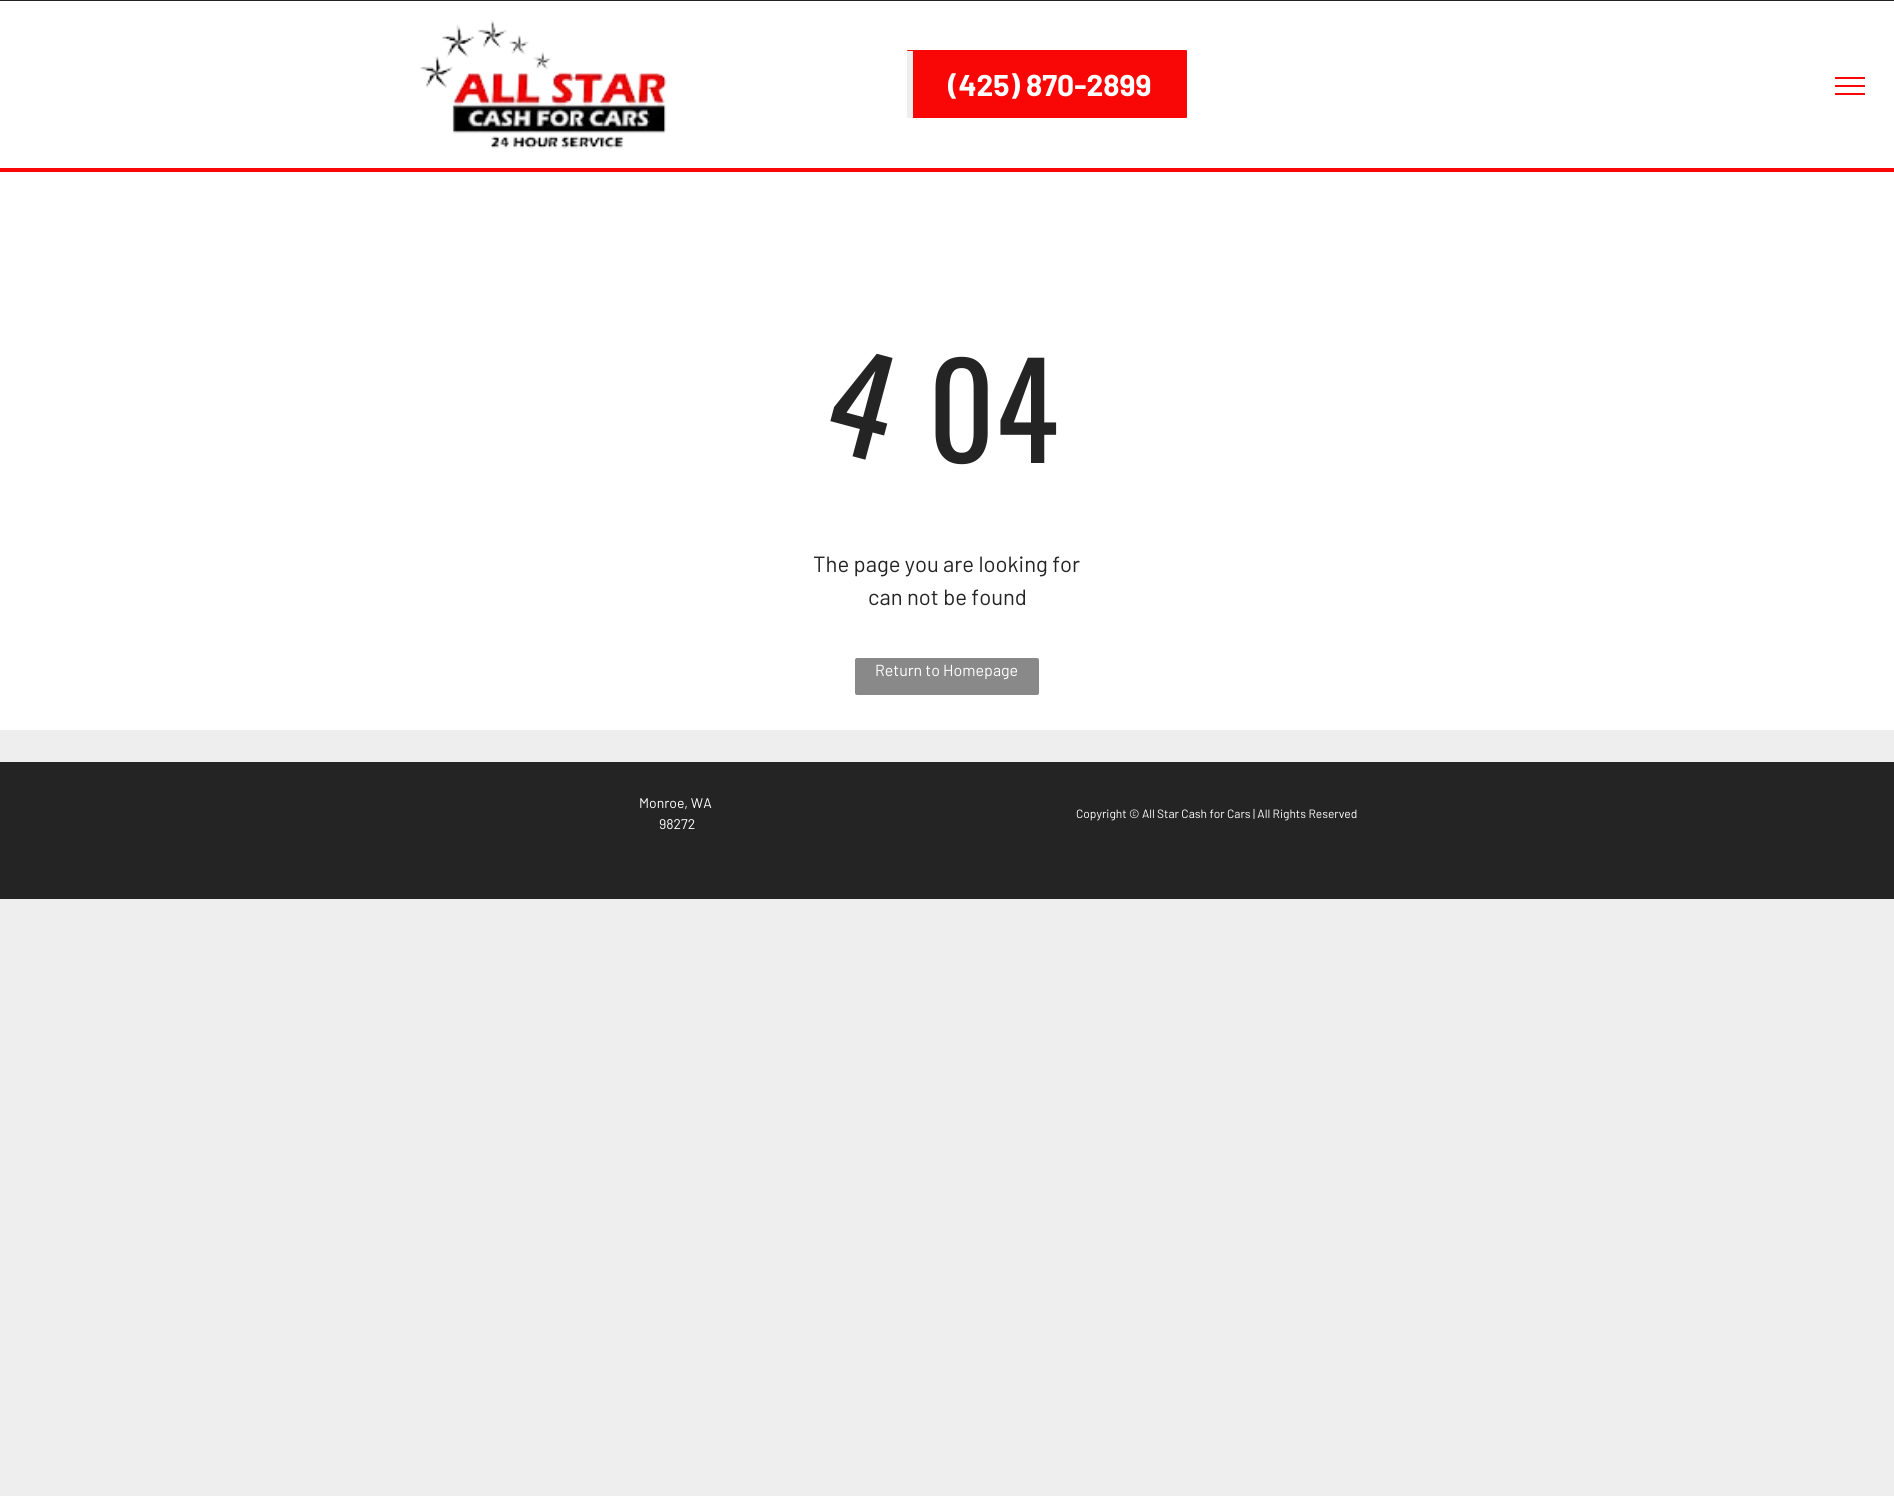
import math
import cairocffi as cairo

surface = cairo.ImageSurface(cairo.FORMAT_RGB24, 1894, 1496)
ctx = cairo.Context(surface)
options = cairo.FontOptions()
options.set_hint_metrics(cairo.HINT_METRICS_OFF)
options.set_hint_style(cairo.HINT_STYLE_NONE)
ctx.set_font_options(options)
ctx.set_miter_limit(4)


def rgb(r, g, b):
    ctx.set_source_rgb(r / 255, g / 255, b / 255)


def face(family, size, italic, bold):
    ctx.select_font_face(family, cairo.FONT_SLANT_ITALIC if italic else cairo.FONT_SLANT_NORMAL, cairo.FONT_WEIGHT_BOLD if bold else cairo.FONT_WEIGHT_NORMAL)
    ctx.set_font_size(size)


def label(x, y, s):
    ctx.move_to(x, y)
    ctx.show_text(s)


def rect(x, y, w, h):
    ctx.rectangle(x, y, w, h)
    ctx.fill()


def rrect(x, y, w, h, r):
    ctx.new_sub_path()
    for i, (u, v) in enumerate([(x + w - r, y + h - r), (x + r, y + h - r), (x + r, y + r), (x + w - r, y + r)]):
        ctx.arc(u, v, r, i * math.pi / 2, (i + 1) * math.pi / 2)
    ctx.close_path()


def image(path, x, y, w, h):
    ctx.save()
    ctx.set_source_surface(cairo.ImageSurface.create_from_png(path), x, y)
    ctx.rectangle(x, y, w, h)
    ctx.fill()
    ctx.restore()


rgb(238, 238, 238)
ctx.paint()
rgb(36, 36, 36)
rect(0, 0, 1894, 1)
rgb(255, 255, 255)
rect(0, 1, 1894, 167)
rgb(249, 7, 7)
rect(0, 168, 1894, 4)
image('image0.png', 419, 20, 248, 129)
rrect(907, 50, 280, 68, 1)
ctx.fill()
rgb(238, 238, 238)
rect(907, 51, 6, 67)
face('Barlow', 30, 0, 1)
rgb(255, 255, 255)
label(948, 96, '(425) 870-2899')
rgb(249, 7, 7)
rect(1835, 77, 30, 2)
rect(1835, 85, 30, 2)
rect(1835, 93, 30, 2)
rgb(255, 255, 255)
rect(0, 172, 1894, 558)
face('Oswald', 130, 0, 0)
rgb(36, 36, 36)
ctx.save()
ctx.translate(818, 447)
ctx.rotate(15 * math.pi / 180)
label(0, 0, '4')
ctx.restore()
label(928, 463, '04')
face('Barlow', 22, 0, 0)
label(813, 572, 'The page you are looking for')
label(868, 605, 'can not be found')
rgb(137, 137, 137)
rrect(855, 658, 184, 37, 2)
ctx.fill()
face('Barlow', 16, 0, 0)
rgb(255, 255, 255)
label(875, 676, 'Return to Homepage')
rgb(36, 36, 36)
rect(0, 762, 1894, 137)
face('Barlow', 14, 0, 0)
rgb(255, 255, 255)
label(639, 808, 'Monroe, WA')
label(659, 829, '98272')
face('Barlow', 12, 0, 0)
label(1076, 818, 'Copyright © All Star Cash for Cars | All Rights Reserved')
surface.write_to_png('render.png')
